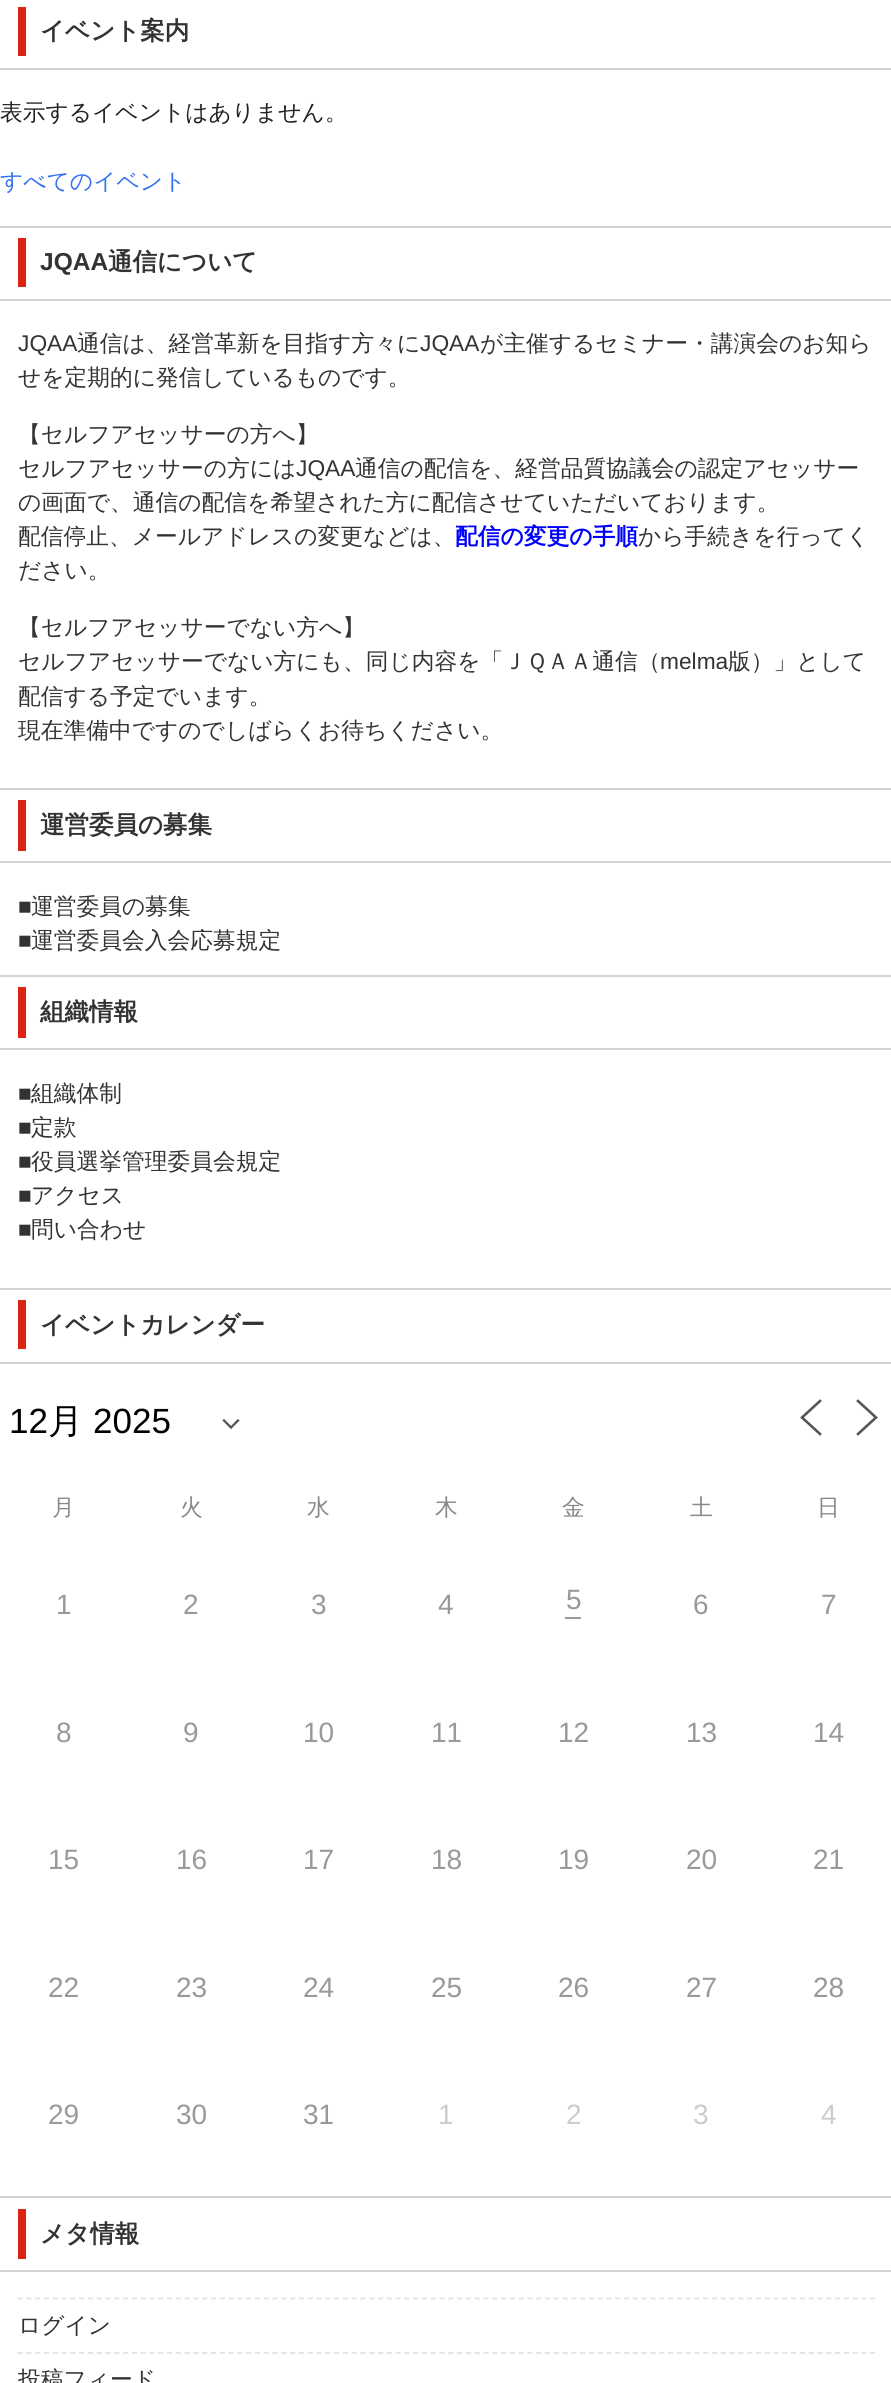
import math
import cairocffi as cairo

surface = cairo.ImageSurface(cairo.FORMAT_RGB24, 891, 2383)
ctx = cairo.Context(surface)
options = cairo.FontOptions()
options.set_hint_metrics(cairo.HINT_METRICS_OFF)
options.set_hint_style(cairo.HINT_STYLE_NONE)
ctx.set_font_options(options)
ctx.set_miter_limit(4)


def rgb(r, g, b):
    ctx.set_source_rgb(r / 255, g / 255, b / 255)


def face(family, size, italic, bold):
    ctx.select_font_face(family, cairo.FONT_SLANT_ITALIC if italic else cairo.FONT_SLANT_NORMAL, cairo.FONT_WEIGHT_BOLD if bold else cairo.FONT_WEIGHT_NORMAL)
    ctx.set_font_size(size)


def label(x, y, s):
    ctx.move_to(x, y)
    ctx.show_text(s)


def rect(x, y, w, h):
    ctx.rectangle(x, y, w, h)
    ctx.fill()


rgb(255, 255, 255)
ctx.paint()
rgb(213, 213, 213)
rect(0, 68, 891, 2)
rgb(220, 35, 20)
rect(18, 7, 8, 49)
face('WenQuanYi Zen Hei', 24.5, 0, 1)
rgb(51, 51, 51)
label(40, 39, 'イベント案内')
face('WenQuanYi Zen Hei Medium', 22.75, 0, 0)
rgb(33, 33, 33)
label(0, 120, '表示するイベントはありません。')
rgb(51, 114, 240)
label(0, 189, 'すべてのイベント')
rgb(213, 213, 213)
rect(0, 226, 891, 2)
rect(0, 299, 891, 2)
rgb(220, 35, 20)
rect(18, 238, 8, 49)
face('Liberation Sans', 24.5, 0, 1)
rgb(51, 51, 51)
label(40, 270, 'JQAA')
face('WenQuanYi Zen Hei', 24.5, 0, 1)
label(108, 270, '通信について')
face('Liberation Sans', 22.75, 0, 0)
label(18, 351, 'JQAA')
face('WenQuanYi Zen Hei Medium', 22.75, 0, 0)
label(77, 351, '通信は、経営革新を目指す方々に')
face('Liberation Sans', 22.75, 0, 0)
label(420, 351, 'JQAA')
face('WenQuanYi Zen Hei Medium', 22.75, 0, 0)
label(480, 351, 'が主催するセミナー・講演会のお知ら')
label(18, 385, 'せを定期的に発信しているものです。')
label(18, 442, '【セルフアセッサーの方へ】')
label(18, 476, 'セルフアセッサーの方には')
face('Liberation Sans', 22.75, 0, 0)
label(296, 476, 'JQAA')
face('WenQuanYi Zen Hei Medium', 22.75, 0, 0)
label(355, 476, '通信の配信を、経営品質協議会の認定アセッサー')
label(18, 510, 'の画面で、通信の配信を希望された方に配信させていただいております。')
label(18, 544, '配信停止、メールアドレスの変更などは、')
face('WenQuanYi Zen Hei', 22.75, 0, 1)
rgb(0, 0, 255)
label(455, 544, '配信の変更の手順')
face('WenQuanYi Zen Hei Medium', 22.75, 0, 0)
rgb(51, 51, 51)
label(638, 544, 'から手続きを行ってく')
label(18, 578, 'ださい。')
label(18, 635, '【セルフアセッサーでない方へ】')
label(18, 669, 'セルフアセッサーでない方にも、同じ内容を「ＪＱＡＡ通信（')
face('Liberation Sans', 22.75, 0, 0)
label(660, 669, 'melma')
face('WenQuanYi Zen Hei Medium', 22.75, 0, 0)
label(728, 669, '版）」として')
label(18, 704, '配信する予定でいます。')
label(18, 738, '現在準備中ですのでしばらくお待ちください。')
rgb(213, 213, 213)
rect(0, 788, 891, 2)
rect(0, 861, 891, 2)
rgb(220, 35, 20)
rect(18, 800, 8, 51)
face('WenQuanYi Zen Hei', 24.5, 0, 1)
rgb(51, 51, 51)
label(40, 833, '運営委員の募集')
face('Liberation Sans', 22.75, 0, 0)
label(18, 914, '■')
face('WenQuanYi Zen Hei Medium', 22.75, 0, 0)
label(31, 914, '運営委員の募集')
face('Liberation Sans', 22.75, 0, 0)
label(18, 948, '■')
face('WenQuanYi Zen Hei Medium', 22.75, 0, 0)
label(31, 948, '運営委員会入会応募規定')
rgb(213, 213, 213)
rect(0, 975, 891, 2)
rect(0, 1048, 891, 2)
rgb(220, 35, 20)
rect(18, 987, 8, 51)
face('WenQuanYi Zen Hei', 24.5, 0, 1)
rgb(51, 51, 51)
label(40, 1020, '組織情報')
face('Liberation Sans', 22.75, 0, 0)
label(18, 1101, '■')
face('WenQuanYi Zen Hei Medium', 22.75, 0, 0)
label(31, 1101, '組織体制')
face('Liberation Sans', 22.75, 0, 0)
label(18, 1135, '■')
face('WenQuanYi Zen Hei Medium', 22.75, 0, 0)
label(31, 1135, '定款')
face('Liberation Sans', 22.75, 0, 0)
label(18, 1169, '■')
face('WenQuanYi Zen Hei Medium', 22.75, 0, 0)
label(31, 1169, '役員選挙管理委員会規定')
face('Liberation Sans', 22.75, 0, 0)
label(18, 1203, '■')
face('WenQuanYi Zen Hei Medium', 22.75, 0, 0)
label(31, 1203, 'アクセス')
face('Liberation Sans', 22.75, 0, 0)
label(18, 1237, '■')
face('WenQuanYi Zen Hei Medium', 22.75, 0, 0)
label(31, 1237, '問い合わせ')
rgb(213, 213, 213)
rect(0, 1288, 891, 2)
rect(0, 1362, 891, 2)
rgb(220, 35, 20)
rect(18, 1300, 8, 49)
face('WenQuanYi Zen Hei', 24.5, 0, 1)
rgb(51, 51, 51)
label(40, 1333, 'イベントカレンダー')
ctx.new_path()
ctx.move_to(224, 1420.5)
ctx.line_to(231, 1427.5)
ctx.line_to(238, 1420.5)
rgb(85, 85, 85)
ctx.set_line_width(2.3)
ctx.set_line_cap(cairo.LINE_CAP_SQUARE)
ctx.stroke()
face('Liberation Sans', 35, 0, 0)
rgb(0, 0, 0)
label(9, 1433, '12')
face('WenQuanYi Zen Hei Medium', 35, 0, 0)
label(48, 1433, '月')
face('Liberation Sans', 35, 0, 0)
label(93, 1433, '2025')
ctx.new_path()
ctx.move_to(820, 1434)
ctx.line_to(802, 1417.5)
ctx.line_to(820, 1401)
rgb(85, 85, 85)
ctx.set_line_width(2.6)
ctx.stroke()
ctx.new_path()
ctx.move_to(858, 1434)
ctx.line_to(876, 1417.5)
ctx.line_to(858, 1401)
ctx.stroke()
face('WenQuanYi Zen Hei Medium', 22.75, 0, 0)
rgb(136, 136, 136)
label(52, 1515, '月')
label(180, 1515, '火')
label(307, 1515, '水')
label(435, 1515, '木')
label(562, 1515, '金')
label(690, 1515, '土')
label(817, 1515, '日')
face('Liberation Sans', 28, 0, 0)
rgb(153, 153, 153)
label(56, 1614, '1')
label(183, 1614, '2')
label(311, 1614, '3')
label(438, 1614, '4')
label(566, 1609, '5')
rect(565, 1617, 16, 2)
label(693, 1614, '6')
label(821, 1614, '7')
label(56, 1742, '8')
label(183, 1742, '9')
label(303, 1742, '10')
label(431, 1742, '11')
label(558, 1742, '12')
label(686, 1742, '13')
label(813, 1742, '14')
label(48, 1869, '15')
label(176, 1869, '16')
label(303, 1869, '17')
label(431, 1869, '18')
label(558, 1869, '19')
label(686, 1869, '20')
label(813, 1869, '21')
label(48, 1997, '22')
label(176, 1997, '23')
label(303, 1997, '24')
label(431, 1997, '25')
label(558, 1997, '26')
label(686, 1997, '27')
label(813, 1997, '28')
label(48, 2124, '29')
label(176, 2124, '30')
label(303, 2124, '31')
rgb(204, 204, 204)
label(438, 2124, '1')
label(566, 2124, '2')
label(693, 2124, '3')
label(821, 2124, '4')
rgb(213, 213, 213)
rect(0, 2196, 891, 2)
rect(0, 2270, 891, 2)
rgb(220, 35, 20)
rect(18, 2209, 8, 50)
face('WenQuanYi Zen Hei', 24.5, 0, 1)
rgb(51, 51, 51)
label(40, 2242, 'メタ情報')
ctx.new_path()
ctx.move_to(17.5, 2298.5)
ctx.line_to(875, 2298.5)
rgb(226, 226, 226)
ctx.set_line_width(1.8)
ctx.set_line_cap(cairo.LINE_CAP_BUTT)
ctx.set_dash([5.25, 3.54])
ctx.stroke()
face('WenQuanYi Zen Hei Medium', 22.75, 0, 0)
rgb(51, 51, 51)
label(18, 2333, 'ログイン')
ctx.new_path()
ctx.move_to(17.5, 2353)
ctx.line_to(875, 2353)
rgb(226, 226, 226)
ctx.stroke()
rgb(51, 51, 51)
label(18, 2387, '投稿フィード')
surface.write_to_png('render.png')
